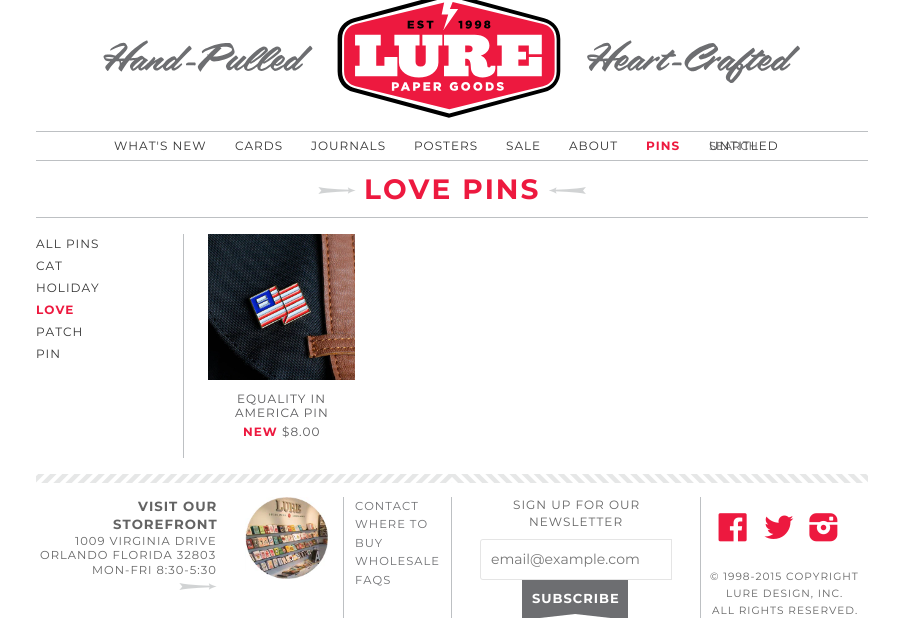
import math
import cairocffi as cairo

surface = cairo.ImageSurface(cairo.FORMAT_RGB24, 904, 618)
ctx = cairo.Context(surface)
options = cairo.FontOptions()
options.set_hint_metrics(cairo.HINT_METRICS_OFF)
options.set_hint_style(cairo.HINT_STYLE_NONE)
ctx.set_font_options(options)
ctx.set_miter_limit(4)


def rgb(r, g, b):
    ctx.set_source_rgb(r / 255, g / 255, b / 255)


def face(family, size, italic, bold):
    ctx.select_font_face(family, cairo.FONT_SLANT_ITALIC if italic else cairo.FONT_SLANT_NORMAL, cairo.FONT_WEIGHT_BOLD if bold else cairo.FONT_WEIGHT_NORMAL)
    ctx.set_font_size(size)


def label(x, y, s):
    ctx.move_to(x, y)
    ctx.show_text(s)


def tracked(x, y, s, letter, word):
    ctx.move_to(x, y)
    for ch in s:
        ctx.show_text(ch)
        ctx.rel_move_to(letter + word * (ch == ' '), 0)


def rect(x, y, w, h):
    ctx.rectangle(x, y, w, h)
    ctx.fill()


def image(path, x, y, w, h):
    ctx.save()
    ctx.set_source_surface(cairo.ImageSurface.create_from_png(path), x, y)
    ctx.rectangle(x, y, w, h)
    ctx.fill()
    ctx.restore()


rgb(255, 255, 255)
ctx.paint()
image('image0.png', 103, 0, 697, 118)
rgb(189, 192, 195)
rect(36, 131, 832, 1)
rect(36, 160, 832, 1)
face('Montserrat', 12, 0, 0)
rgb(51, 51, 51)
tracked(114, 150, 'WHAT\'S NEW', 1, 0)
tracked(235, 150, 'CARDS', 1, 0)
tracked(311, 150, 'JOURNALS', 1, 0)
tracked(414, 150, 'POSTERS', 1, 0)
tracked(506, 150, 'SALE', 1, 0)
tracked(569, 150, 'ABOUT', 1, 0)
face('Montserrat', 12, 0, 1)
rgb(237, 25, 63)
tracked(646, 150, 'PINS', 1, 0)
face('Montserrat', 12, 0, 0)
rgb(51, 51, 51)
tracked(709, 150, 'UNTITLED', 1, 0)
face('Montserrat', 11.5, 0, 0)
rgb(88, 88, 90)
label(709, 150, 'SEARCH')
rgb(189, 192, 195)
rect(36, 217, 832, 1)
image('image1.png', 318, 187, 38, 7)
face('Montserrat', 28, 0, 1)
rgb(237, 25, 63)
tracked(364, 199, 'LOVE PINS', 2, 0)
image('image2.png', 549, 187, 37, 7)
face('Montserrat', 12, 0, 0)
rgb(51, 51, 51)
tracked(36, 248, 'ALL PINS', 1, 0)
tracked(36, 270, 'CAT', 1, 0)
tracked(36, 292, 'HOLIDAY', 1, 0)
face('Montserrat', 12, 0, 1)
rgb(237, 25, 63)
tracked(36, 314, 'LOVE', 1, 0)
face('Montserrat', 12, 0, 0)
rgb(51, 51, 51)
tracked(36, 336, 'PATCH', 1, 0)
tracked(36, 358, 'PIN', 1, 0)
rgb(189, 192, 195)
rect(183, 234, 1, 224)
image('image3.png', 208, 234, 147, 146)
rgb(88, 88, 90)
tracked(237, 403, 'EQUALITY IN', 1, 0)
tracked(235, 417, 'AMERICA PIN', 1, 0)
face('Montserrat', 12, 0, 1)
rgb(237, 25, 63)
tracked(243, 436, 'NEW', 1, 0)
face('Montserrat', 12, 0, 0)
rgb(88, 88, 90)
tracked(282, 436, '$8.00', 1, 0)
image('image4.png', 36, 474, 832, 9)
rgb(189, 192, 195)
rect(343, 497, 1, 121)
face('Montserrat', 13.25, 0, 1)
rgb(99, 99, 99)
tracked(138, 511, 'VISIT OUR', 1, 0)
tracked(113, 529, 'STOREFRONT', 1, 0)
face('Montserrat', 11.5, 0, 0)
tracked(75, 545, '1009 VIRGINIA DRIVE', 1, 0)
tracked(40, 559, 'ORLANDO FLORIDA 32803', 1, 0)
tracked(92, 574, 'MON-FRI 8:30-5:30', 1, 0)
image('image1.png', 179, 583, 38, 7)
image('image5.png', 245, 497, 83, 82)
rgb(189, 192, 195)
rect(451, 497, 1, 121)
rgb(109, 110, 113)
tracked(355, 510, 'CONTACT', 1, 0)
tracked(355, 528, 'WHERE TO', 1, 0)
tracked(355, 547, 'BUY', 1, 0)
tracked(355, 565, 'WHOLESALE', 1, 0)
tracked(355, 584, 'FAQS', 1, 0)
rgb(189, 192, 195)
rect(700, 497, 1, 121)
face('Montserrat', 12, 0, 0)
rgb(99, 99, 99)
tracked(513, 509, 'SIGN UP FOR OUR', 1, 0)
tracked(529, 526, 'NEWSLETTER', 1, 0)
ctx.new_path()
ctx.move_to(483, 539.5)
ctx.line_to(671.5, 539.5)
ctx.line_to(671.5, 579.5)
ctx.line_to(483, 579.5)
ctx.curve_to(481.5, 579.5, 480.5, 578.5, 480.5, 577)
ctx.line_to(480.5, 542)
ctx.curve_to(480.5, 540.5, 481.5, 539.5, 483, 539.5)
ctx.close_path()
rgb(229, 229, 229)
ctx.set_line_width(1)
ctx.stroke()
face('Montserrat', 14, 0, 0)
rgb(117, 117, 117)
label(491, 564, 'email@example.com')
rgb(109, 110, 113)
ctx.set_fill_rule(cairo.FILL_RULE_EVEN_ODD)
ctx.new_path()
ctx.move_to(628, 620)
ctx.line_to(575, 614)
ctx.line_to(522, 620)
ctx.line_to(522, 580)
ctx.line_to(628, 580)
ctx.close_path()
ctx.fill()
face('Montserrat', 13, 0, 1)
rgb(255, 255, 255)
tracked(532, 603, 'SUBSCRIBE', 1, 0)
image('image6.png', 718, 513, 29, 29)
image('image7.png', 764, 515, 30, 24)
image('image8.png', 809, 513, 29, 29)
face('Montserrat', 10.5, 0, 0)
rgb(99, 99, 99)
tracked(710, 580, '© 1998-2015 COPYRIGHT', 1, 0)
tracked(726, 597, 'LURE DESIGN, INC.', 1, 0)
tracked(712, 614, 'ALL RIGHTS RESERVED.', 1, 0)
surface.write_to_png('render.png')
